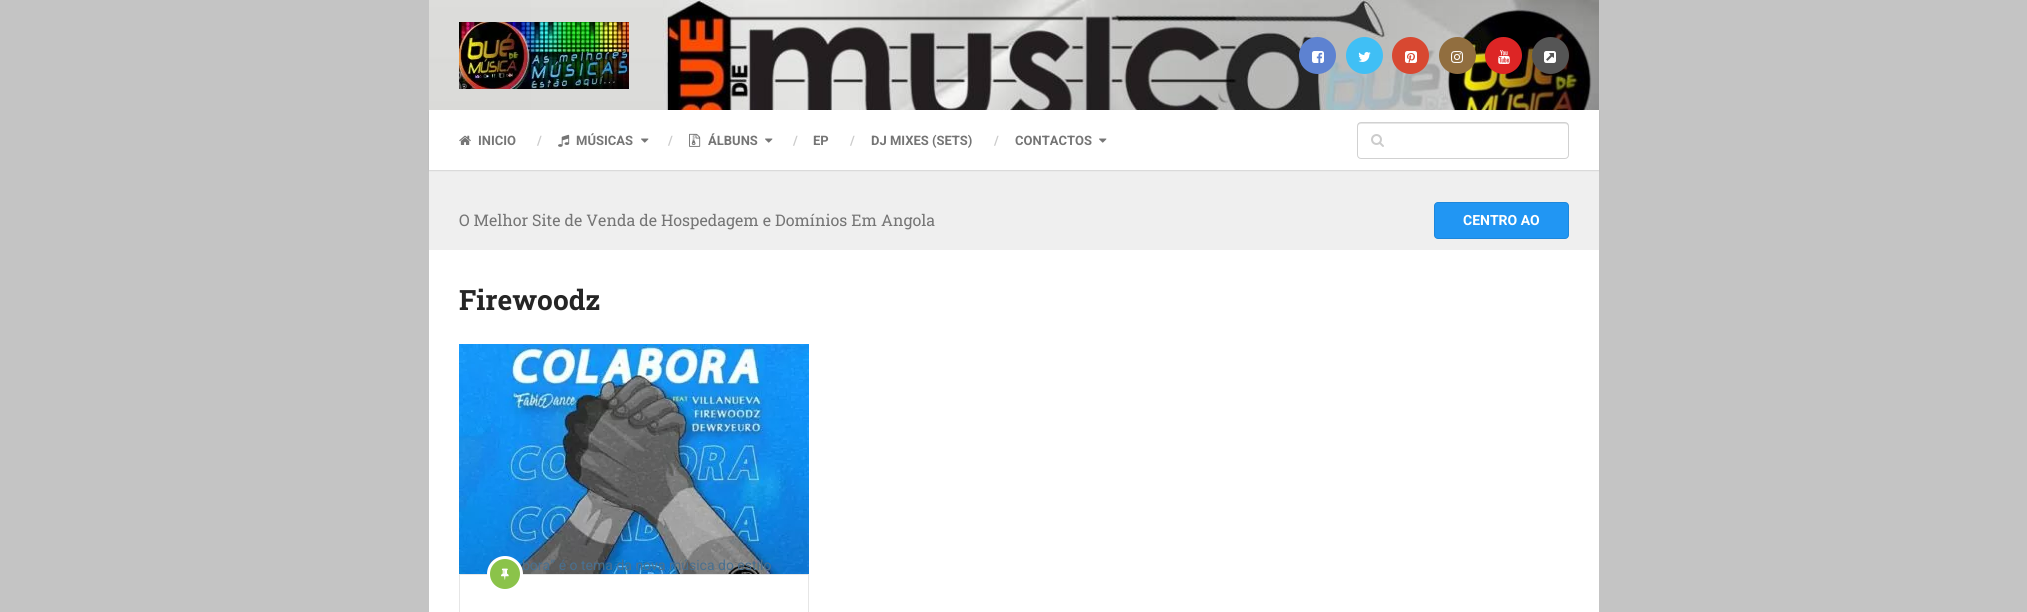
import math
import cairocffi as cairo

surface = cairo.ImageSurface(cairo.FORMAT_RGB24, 2027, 612)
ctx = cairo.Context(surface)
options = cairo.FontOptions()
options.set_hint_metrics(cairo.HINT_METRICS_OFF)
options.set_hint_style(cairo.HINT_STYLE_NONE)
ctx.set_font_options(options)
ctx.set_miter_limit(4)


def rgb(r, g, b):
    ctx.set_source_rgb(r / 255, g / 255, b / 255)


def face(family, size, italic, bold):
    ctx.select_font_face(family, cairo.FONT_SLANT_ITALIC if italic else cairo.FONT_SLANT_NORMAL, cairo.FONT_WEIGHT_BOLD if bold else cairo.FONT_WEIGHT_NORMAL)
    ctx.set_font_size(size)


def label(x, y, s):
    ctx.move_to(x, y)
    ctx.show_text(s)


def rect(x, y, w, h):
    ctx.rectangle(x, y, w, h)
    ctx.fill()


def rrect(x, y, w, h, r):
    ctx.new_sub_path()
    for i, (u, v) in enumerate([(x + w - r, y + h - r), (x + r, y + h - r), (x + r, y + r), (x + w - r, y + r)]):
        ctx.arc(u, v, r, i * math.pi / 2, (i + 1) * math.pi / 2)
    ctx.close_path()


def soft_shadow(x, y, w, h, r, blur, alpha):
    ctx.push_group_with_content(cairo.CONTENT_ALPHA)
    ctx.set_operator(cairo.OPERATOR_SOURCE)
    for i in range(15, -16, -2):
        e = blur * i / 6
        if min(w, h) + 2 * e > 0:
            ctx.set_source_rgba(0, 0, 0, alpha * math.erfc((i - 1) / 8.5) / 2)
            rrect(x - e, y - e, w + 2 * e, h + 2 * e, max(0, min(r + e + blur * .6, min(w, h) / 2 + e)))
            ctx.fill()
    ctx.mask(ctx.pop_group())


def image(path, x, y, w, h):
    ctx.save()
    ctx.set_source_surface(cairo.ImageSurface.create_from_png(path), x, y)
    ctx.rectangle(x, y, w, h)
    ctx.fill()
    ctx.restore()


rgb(196, 196, 196)
ctx.paint()
image('image0.png', 429, 0, 1170, 110)
image('image1.png', 459, 22, 170, 67)
rgb(93, 130, 209)
ctx.arc(1317.5, 55.5, 18.5, 0, 2 * math.pi)
ctx.fill()
image('image2.png', 1312, 51, 12, 12)
rgb(64, 191, 245)
ctx.arc(1364.5, 55.5, 18.5, 0, 2 * math.pi)
ctx.fill()
image('image3.png', 1358, 52, 13, 10)
rgb(216, 72, 49)
ctx.arc(1410.5, 55.5, 18.5, 0, 2 * math.pi)
ctx.fill()
image('image4.png', 1405, 51, 12, 12)
rgb(145, 110, 63)
ctx.arc(1457.5, 55.5, 18.5, 0, 2 * math.pi)
ctx.fill()
image('image5.png', 1451, 51, 12, 12)
rgb(221, 37, 37)
ctx.arc(1503.5, 55.5, 18.5, 0, 2 * math.pi)
ctx.fill()
image('image6.png', 1498, 50, 12, 14)
rgb(85, 85, 85)
ctx.arc(1550.5, 55.5, 18.5, 0, 2 * math.pi)
ctx.fill()
image('image7.png', 1544, 51, 12, 12)
rgb(239, 239, 239)
rect(429, 170, 1170, 80)
rgb(0, 0, 0)
soft_shadow(429, 111, 1170, 60, 0, 0.5, 0.1)
rgb(255, 255, 255)
rect(429, 110, 1170, 60)
image('image8.png', 459, 135, 12, 10)
face('Roboto', 13, 0, 1)
rgb(117, 117, 117)
label(478, 145, 'INICIO')
rgb(204, 204, 204)
label(537, 145, '/')
image('image9.png', 558, 134, 12, 13)
rgb(117, 117, 117)
label(576, 145, 'MÚSICAS')
image('image10.png', 641, 138, 8, 5)
rgb(204, 204, 204)
label(668, 145, '/')
image('image11.png', 689, 133, 12, 14)
rgb(117, 117, 117)
label(708, 145, 'ÁLBUNS')
image('image10.png', 765, 138, 8, 5)
rgb(204, 204, 204)
label(793, 145, '/')
rgb(117, 117, 117)
label(813, 145, 'EP')
rgb(204, 204, 204)
label(850, 145, '/')
rgb(117, 117, 117)
label(871, 145, 'DJ MIXES (SETS)')
rgb(204, 204, 204)
label(994, 145, '/')
rgb(117, 117, 117)
label(1015, 145, 'CONTACTOS')
image('image10.png', 1099, 138, 8, 5)
rgb(230, 230, 230)
ctx.new_path()
ctx.move_to(1361, 124)
ctx.line_to(1565, 124)
ctx.curve_to(1567, 124, 1568, 125, 1568, 127)
ctx.line_to(1568, 126)
ctx.curve_to(1568, 124, 1567, 123, 1565, 123)
ctx.line_to(1361, 123)
ctx.curve_to(1359, 123, 1358, 124, 1358, 126)
ctx.line_to(1358, 127)
ctx.curve_to(1358, 125, 1359, 124, 1361, 124)
ctx.close_path()
ctx.fill()
rrect(1357.5, 122.5, 211, 36, 3.5)
ctx.set_source_rgba(0, 0, 0, 0.18)
ctx.set_line_width(1)
ctx.stroke()
image('image12.png', 1371, 134, 13, 13)
face('Roboto Slab', 16, 0, 0)
rgb(117, 117, 117)
label(459, 226, 'O Melhor Site de Venda de Hospedagem e Domínios Em Angola')
rgb(33, 150, 243)
rrect(1434, 202, 135, 37, 4)
ctx.fill()
rrect(1434.5, 202.5, 134, 36, 3.5)
ctx.set_source_rgba(0, 0, 0, 0.1)
ctx.stroke()
face('Roboto', 14, 0, 1)
rgb(255, 255, 255)
label(1463, 225, 'CENTRO AO')
rect(429, 250, 1170, 362)
face('Roboto Slab', 28, 0, 1)
rgb(37, 37, 37)
label(459, 310, 'Firewoodz')
image('image14.png', 459, 344, 350, 230)
face('Roboto', 14, 0, 0)
rgb(73, 112, 144)
label(489, 570, '“')
label(522, 570, 'bora” é o tema da nova música do estilo')
ctx.rectangle(459.5, 574.5, 349, 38)
rgb(230, 230, 230)
ctx.stroke()
rgb(139, 195, 74)
ctx.arc(505, 574, 16.5, 0, 2 * math.pi)
ctx.fill_preserve()
rgb(255, 255, 255)
ctx.set_line_width(3)
ctx.stroke()
image('image13.png', 501, 568, 8, 12)
surface.write_to_png('render.png')
